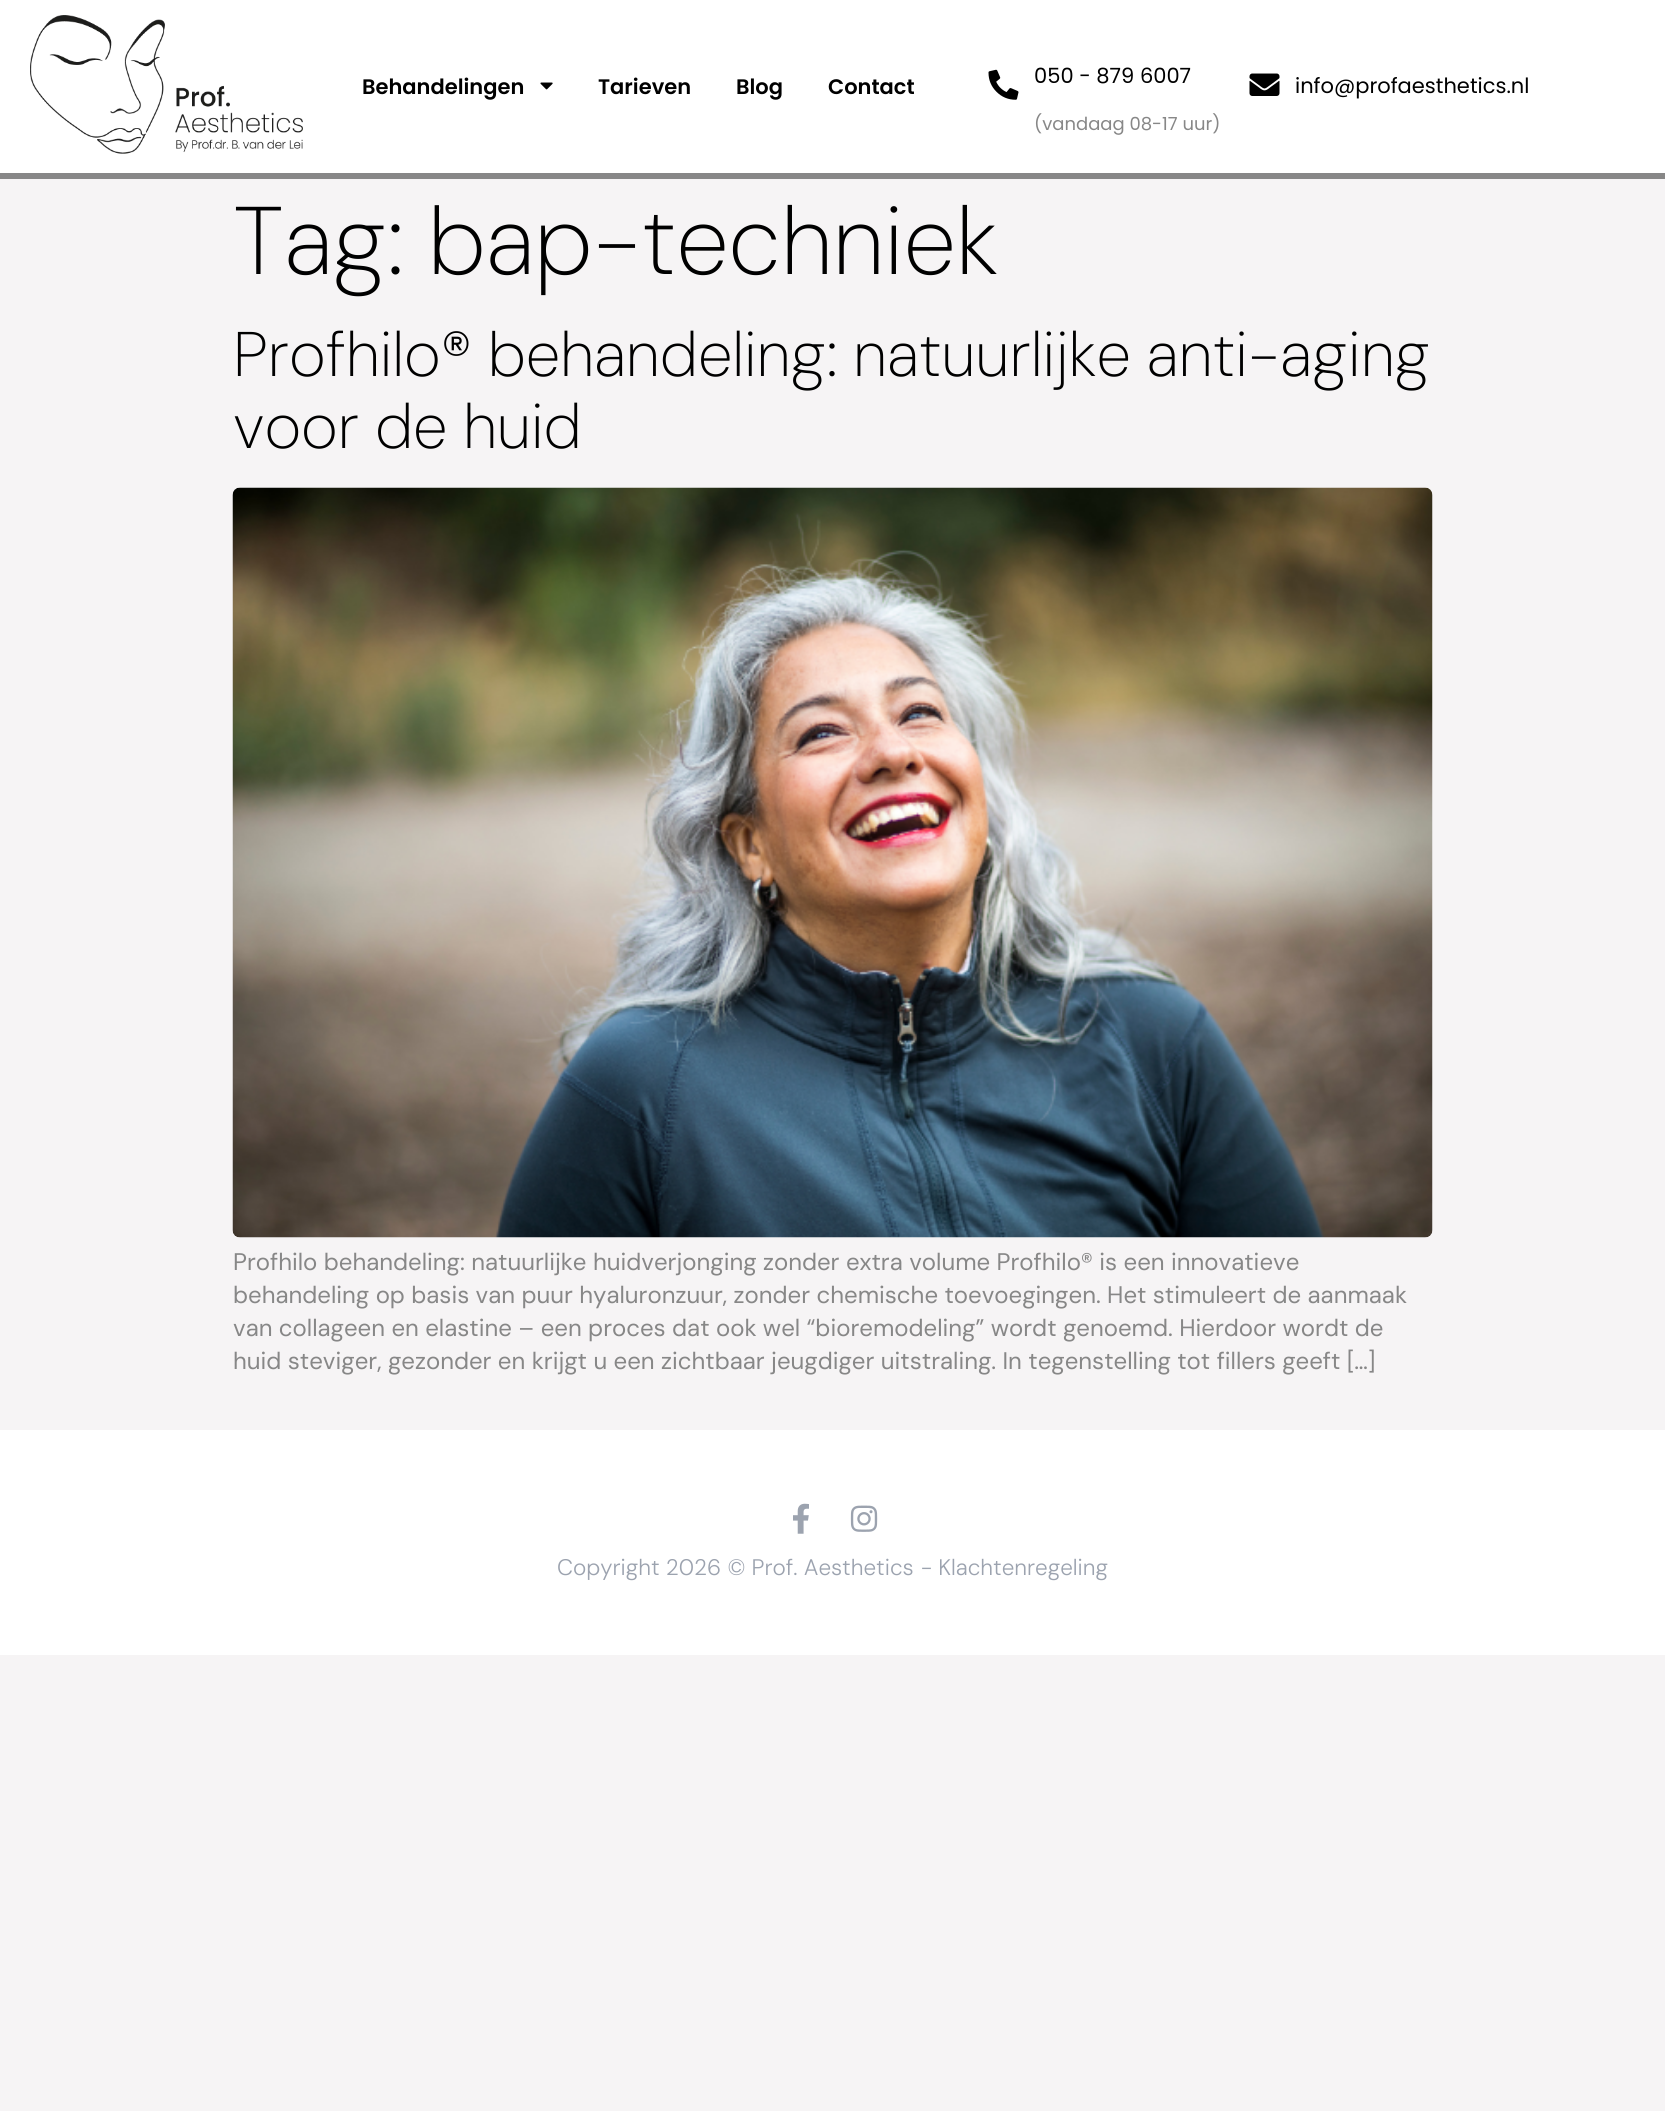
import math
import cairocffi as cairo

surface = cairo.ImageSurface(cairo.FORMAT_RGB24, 1665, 2111)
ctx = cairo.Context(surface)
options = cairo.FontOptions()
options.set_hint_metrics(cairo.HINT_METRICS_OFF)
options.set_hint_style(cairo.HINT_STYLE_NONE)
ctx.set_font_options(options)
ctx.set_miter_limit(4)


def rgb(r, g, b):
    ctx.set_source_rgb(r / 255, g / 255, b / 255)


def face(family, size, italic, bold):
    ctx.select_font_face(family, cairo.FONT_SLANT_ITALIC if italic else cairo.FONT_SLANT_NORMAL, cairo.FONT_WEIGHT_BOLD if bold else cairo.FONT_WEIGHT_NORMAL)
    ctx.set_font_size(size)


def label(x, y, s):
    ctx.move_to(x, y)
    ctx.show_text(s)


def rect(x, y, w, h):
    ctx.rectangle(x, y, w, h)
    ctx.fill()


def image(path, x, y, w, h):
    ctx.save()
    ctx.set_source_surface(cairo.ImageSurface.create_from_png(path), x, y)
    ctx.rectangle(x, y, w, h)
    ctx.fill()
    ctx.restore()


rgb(246, 244, 245)
ctx.paint()
rgb(255, 255, 255)
rect(0, 0, 1665, 173)
rgb(135, 135, 135)
rect(0, 173, 1665, 6)
image('image0.png', 30, 15, 273, 139)
face('Poppins SemiBold', 21, 0, 0)
rgb(0, 0, 0)
label(362, 94, 'Behandelingen')
image('image1.png', 540, 82, 13, 8)
label(598, 94, 'Tarieven')
label(736, 94, 'Blog')
label(828, 94, 'Contact')
image('image2.png', 988, 69, 31, 31)
face('Poppins', 21, 0, 0)
label(1034, 83, '050 - 879 6007')
face('Poppins', 18, 0, 0)
rgb(135, 135, 135)
label(1034, 130, '(vandaag 08-17 uur)')
image('image3.png', 1249, 73, 31, 23)
face('Poppins', 21, 0, 0)
rgb(0, 0, 0)
label(1295, 93, 'info@profaesthetics.nl')
face('DM Sans ExtraLight', 96, 0, 0)
label(233, 274, 'Tag: bap-techniek')
face('DM Sans ExtraLight', 63, 0, 0)
label(233, 376, 'Profhilo® behandeling: natuurlijke anti-aging')
label(233, 448, 'voor de huid')
image('image4.png', 232, 487, 1201, 751)
face('DM Sans', 24, 0, 0)
rgb(135, 135, 135)
label(233, 1270, 'Profhilo behandeling: natuurlijke huidverjonging zonder extra volume Profhilo® is een innovatieve')
label(233, 1303, 'behandeling op basis van puur hyaluronzuur, zonder chemische toevoegingen. Het stimuleert de aanmaak')
label(233, 1336, 'van collageen en elastine – een proces dat ook wel “bioremodeling” wordt genoemd. Hierdoor wordt de')
label(233, 1369, 'huid steviger, gezonder en krijgt u een zichtbaar jeugdiger uitstraling. In tegenstelling tot fillers geeft […]')
rgb(255, 255, 255)
rect(0, 1430, 1665, 225)
image('image5.png', 793, 1503, 16, 31)
image('image6.png', 850, 1505, 28, 27)
face('DM Sans Light', 22.5, 0, 0)
rgb(156, 163, 175)
label(557, 1575, 'Copyright 2026 © Prof. Aesthetics')
label(921, 1575, '- Klachtenregeling')
surface.write_to_png('render.png')
